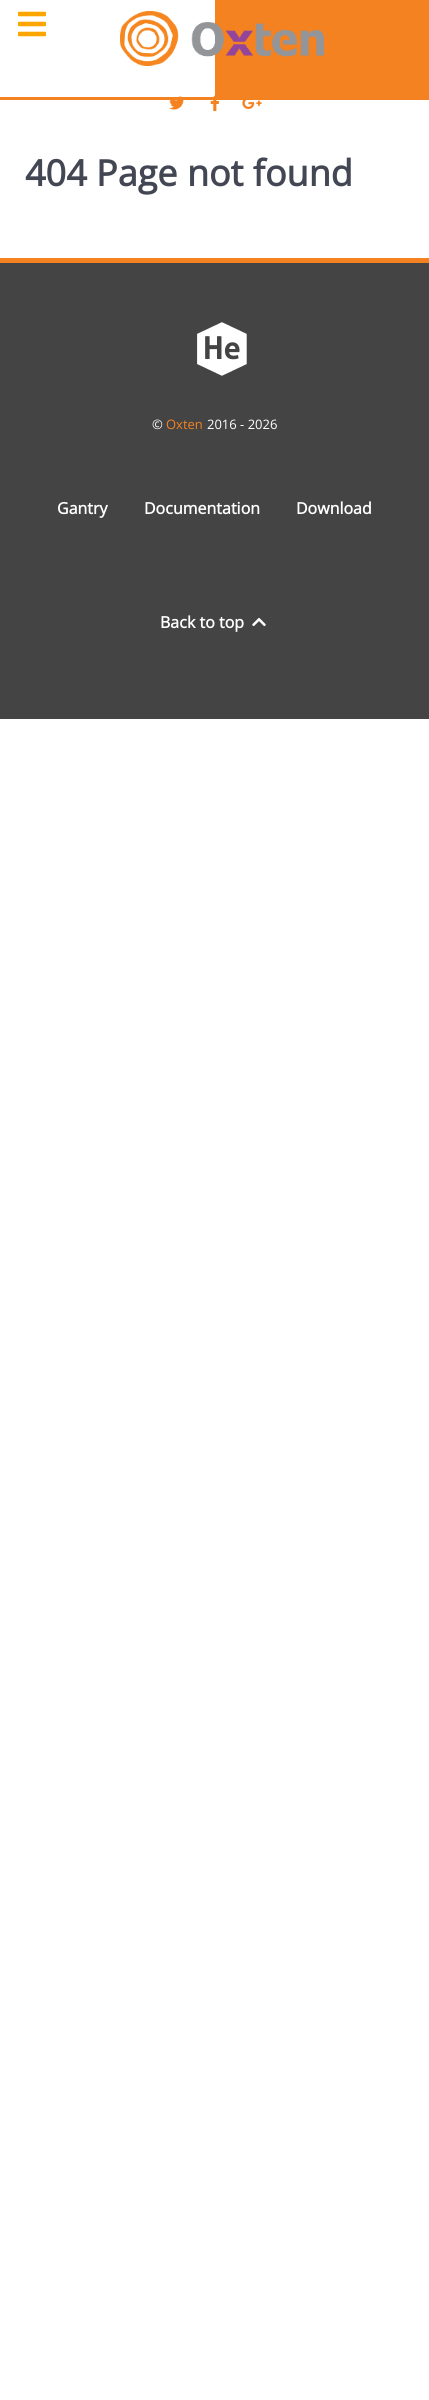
import math
import cairocffi as cairo

surface = cairo.ImageSurface(cairo.FORMAT_RGB24, 429, 2400)
ctx = cairo.Context(surface)
options = cairo.FontOptions()
options.set_hint_metrics(cairo.HINT_METRICS_OFF)
options.set_hint_style(cairo.HINT_STYLE_NONE)
ctx.set_font_options(options)
ctx.set_miter_limit(4)


def rgb(r, g, b):
    ctx.set_source_rgb(r / 255, g / 255, b / 255)


def face(family, size, italic, bold):
    ctx.select_font_face(family, cairo.FONT_SLANT_ITALIC if italic else cairo.FONT_SLANT_NORMAL, cairo.FONT_WEIGHT_BOLD if bold else cairo.FONT_WEIGHT_NORMAL)
    ctx.set_font_size(size)


def label(x, y, s):
    ctx.move_to(x, y)
    ctx.show_text(s)


def rect(x, y, w, h):
    ctx.rectangle(x, y, w, h)
    ctx.fill()


def image(path, x, y, w, h):
    ctx.save()
    ctx.set_source_surface(cairo.ImageSurface.create_from_png(path), x, y)
    ctx.rectangle(x, y, w, h)
    ctx.fill()
    ctx.restore()


rgb(255, 255, 255)
ctx.paint()
rgb(245, 130, 32)
rect(215, 0, 214, 97)
rect(0, 97, 429, 3)
image('image0.png', 120, 11, 204, 55)
image('image1.png', 169, 96, 16, 14)
image('image2.png', 210, 95, 10, 16)
image('image3.png', 242, 100, 20, 9)
image('image4.png', 18, 11, 28, 26)
face('Open Sans', 36, 0, 1)
rgb(66, 71, 83)
label(25, 186, '404 Page not found')
rgb(68, 68, 68)
rect(0, 263, 429, 456)
rgb(245, 130, 32)
rect(0, 258, 429, 5)
image('image5.png', 197, 322, 50, 54)
face('Open Sans', 13, 0, 0)
rgb(255, 255, 255)
label(152, 429, '©')
rgb(245, 130, 32)
label(166, 429, 'Oxten')
rgb(255, 255, 255)
label(207, 429, '2016 - 2026')
face('Open Sans', 16, 0, 1)
label(57, 514, 'Gantry')
label(144, 514, 'Documentation')
label(296, 514, 'Download')
label(160, 628, 'Back to top')
image('image6.png', 252, 617, 14, 10)
surface.write_to_png('render.png')
